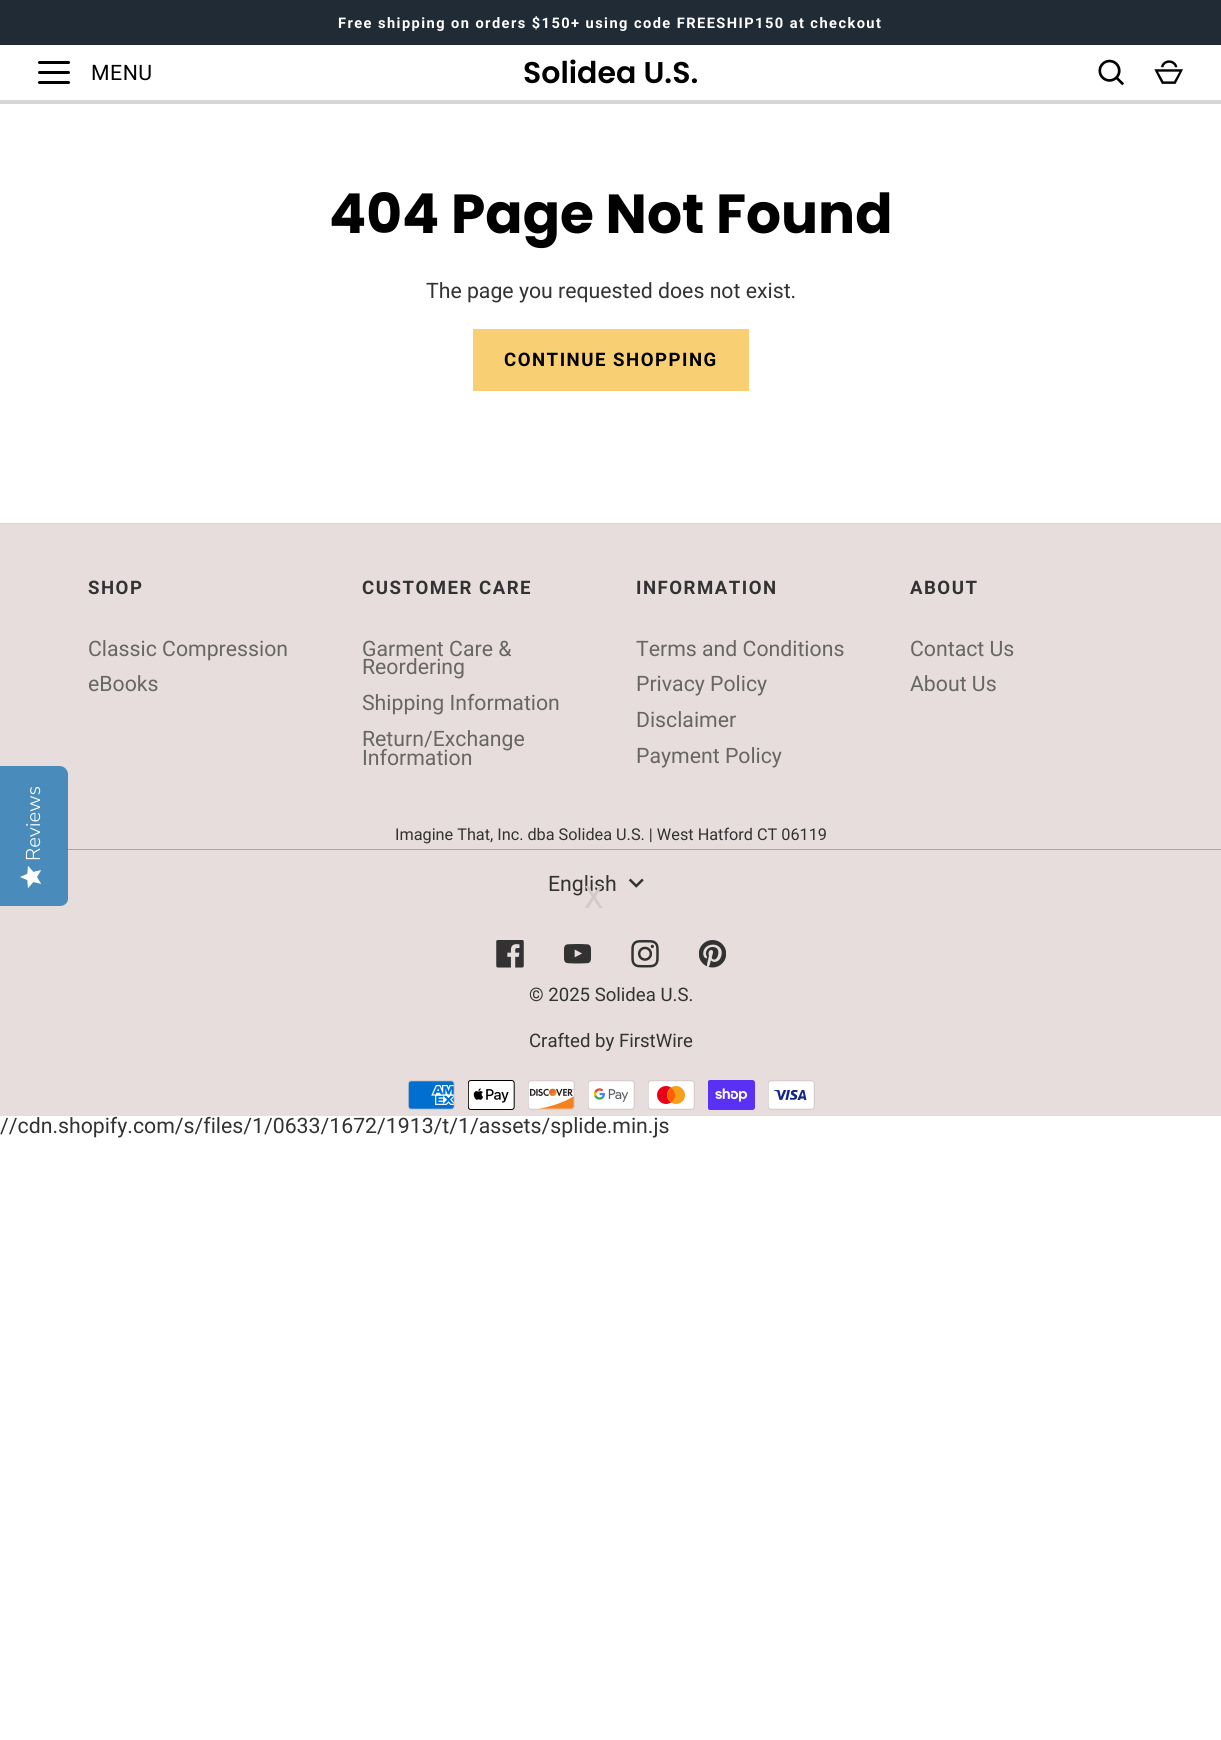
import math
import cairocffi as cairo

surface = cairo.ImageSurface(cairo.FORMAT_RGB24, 1221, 1740)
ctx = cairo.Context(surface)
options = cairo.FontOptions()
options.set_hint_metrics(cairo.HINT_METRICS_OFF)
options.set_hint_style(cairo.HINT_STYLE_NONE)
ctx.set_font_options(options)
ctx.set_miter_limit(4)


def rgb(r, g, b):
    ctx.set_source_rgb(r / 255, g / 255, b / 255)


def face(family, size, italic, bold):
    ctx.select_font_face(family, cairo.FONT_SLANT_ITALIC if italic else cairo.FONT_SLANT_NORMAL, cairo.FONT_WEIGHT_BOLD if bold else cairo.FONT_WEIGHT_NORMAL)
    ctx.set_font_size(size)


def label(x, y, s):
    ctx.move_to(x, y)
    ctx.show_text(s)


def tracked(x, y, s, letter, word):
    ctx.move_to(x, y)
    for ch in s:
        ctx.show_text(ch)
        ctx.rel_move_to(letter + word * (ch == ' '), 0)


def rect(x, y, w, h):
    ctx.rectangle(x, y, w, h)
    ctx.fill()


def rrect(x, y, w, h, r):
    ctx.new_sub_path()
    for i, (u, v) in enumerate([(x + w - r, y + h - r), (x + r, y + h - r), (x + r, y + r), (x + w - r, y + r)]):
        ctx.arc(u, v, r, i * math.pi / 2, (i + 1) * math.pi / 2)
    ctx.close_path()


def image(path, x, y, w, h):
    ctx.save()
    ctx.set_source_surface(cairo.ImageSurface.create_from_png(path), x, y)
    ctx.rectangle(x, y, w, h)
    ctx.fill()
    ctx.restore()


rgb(255, 255, 255)
ctx.paint()
rgb(33, 43, 54)
rect(0, 0, 1221, 45)
face('Roboto', 14.6, 0, 1)
rgb(255, 255, 255)
tracked(338, 28, 'Free shipping on orders $150+ using code FREESHIP150 at checkout', 1.45, 0)
rgb(214, 214, 214)
rect(0, 100, 1221, 4)
rgb(0, 0, 0)
rrect(38, 61, 32, 3, 1.5)
ctx.fill()
rrect(38, 71, 32, 3, 1.5)
ctx.fill()
rrect(38, 81, 32, 3, 1.5)
ctx.fill()
face('Roboto', 21.25, 0, 0)
tracked(91, 80, 'MENU', 0.5, 0)
face('Poppins SemiBold', 30, 0, 0)
label(523, 83, 'Solidea U.S.')
image('image0.png', 1098, 59, 26, 27)
image('image1.png', 1154, 60, 29, 24)
face('Poppins', 55, 0, 1)
label(329, 233, '404 Page Not Found')
face('Roboto', 21.25, 0, 0)
rgb(50, 50, 50)
label(426, 298, 'The page you requested does not exist.')
rgb(249, 207, 115)
rect(473, 329, 276, 62)
face('Roboto', 18.6, 0, 1)
rgb(0, 0, 0)
tracked(504, 366, 'CONTINUE SHOPPING', 1.5, 0)
rgb(231, 221, 221)
rect(0, 524, 1221, 592)
rgb(73, 140, 188)
ctx.new_path()
ctx.move_to(0, 906)
ctx.line_to(0, 766)
ctx.line_to(60, 766)
ctx.curve_to(64, 766, 68, 770, 68, 774)
ctx.line_to(68, 899)
ctx.curve_to(68, 903, 64, 906, 60, 906)
ctx.close_path()
ctx.fill()
face('Nunito Sans Light', 20, 0, 0)
rgb(255, 255, 255)
ctx.save()
ctx.translate(40, 861)
ctx.rotate(-90 * math.pi / 180)
label(0, 0, 'Reviews')
ctx.restore()
image('image2.png', 20, 866, 22, 22)
rgb(214, 214, 214)
rect(0, 523, 1221, 1)
face('Roboto', 18.6, 0, 1)
rgb(50, 50, 50)
tracked(88, 594, 'SHOP', 1.5, 0)
face('Roboto', 21.25, 0, 0)
rgb(104, 101, 101)
label(88, 656, 'Classic Compression')
label(88, 691, 'eBooks')
face('Roboto', 18.6, 0, 1)
rgb(50, 50, 50)
tracked(362, 594, 'CUSTOMER CARE', 1.5, 0)
face('Roboto', 21.25, 0, 0)
rgb(104, 101, 101)
label(362, 656, 'Garment Care &')
label(362, 674, 'Reordering')
label(362, 710, 'Shipping Information')
label(362, 746, 'Return/Exchange')
label(362, 765, 'Information')
face('Roboto', 18.6, 0, 1)
rgb(50, 50, 50)
tracked(636, 594, 'INFORMATION', 1.5, 0)
face('Roboto', 21.25, 0, 0)
rgb(104, 101, 101)
label(636, 656, 'Terms and Conditions')
label(636, 691, 'Privacy Policy')
label(636, 727, 'Disclaimer')
label(636, 763, 'Payment Policy')
face('Roboto', 18.6, 0, 1)
rgb(50, 50, 50)
tracked(910, 594, 'ABOUT', 1.5, 0)
face('Roboto', 21.25, 0, 0)
rgb(104, 101, 101)
label(910, 656, 'Contact Us')
label(910, 691, 'About Us')
face('Roboto', 16.25, 0, 0)
rgb(50, 50, 50)
label(395, 840, 'Imagine That, Inc. dba Solidea U.S. | West Hatford CT 06119')
rgb(177, 164, 164)
rect(68, 849, 1153, 1)
face('Roboto', 21.25, 0, 0)
rgb(50, 50, 50)
label(548, 891, 'English')
image('image3.png', 628, 878, 16, 10)
image('image4.png', 496, 940, 28, 28)
image('image5.png', 564, 944, 27, 20)
image('image6.png', 631, 940, 28, 28)
image('image7.png', 699, 940, 27, 28)
face('Roboto', 18.6, 0, 0)
label(529, 1001, '© 2025 Solidea U.S.')
label(529, 1047, 'Crafted by FirstWire')
image('image8.png', 408, 1080, 47, 30)
image('image9.png', 468, 1080, 47, 30)
image('image10.png', 528, 1080, 47, 30)
image('image11.png', 588, 1080, 47, 30)
image('image12.png', 648, 1080, 47, 30)
image('image13.png', 708, 1080, 47, 30)
image('image14.png', 768, 1080, 47, 30)
face('Roboto', 31, 0, 0)
rgb(210, 201, 201)
label(584, 908, 'X')
face('Roboto', 21.25, 0, 0)
rgb(50, 50, 50)
label(0, 1133, '//cdn.shopify.com/s/files/1/0633/1672/1913/t/1/assets/splide.min.js')
surface.write_to_png('render.png')
